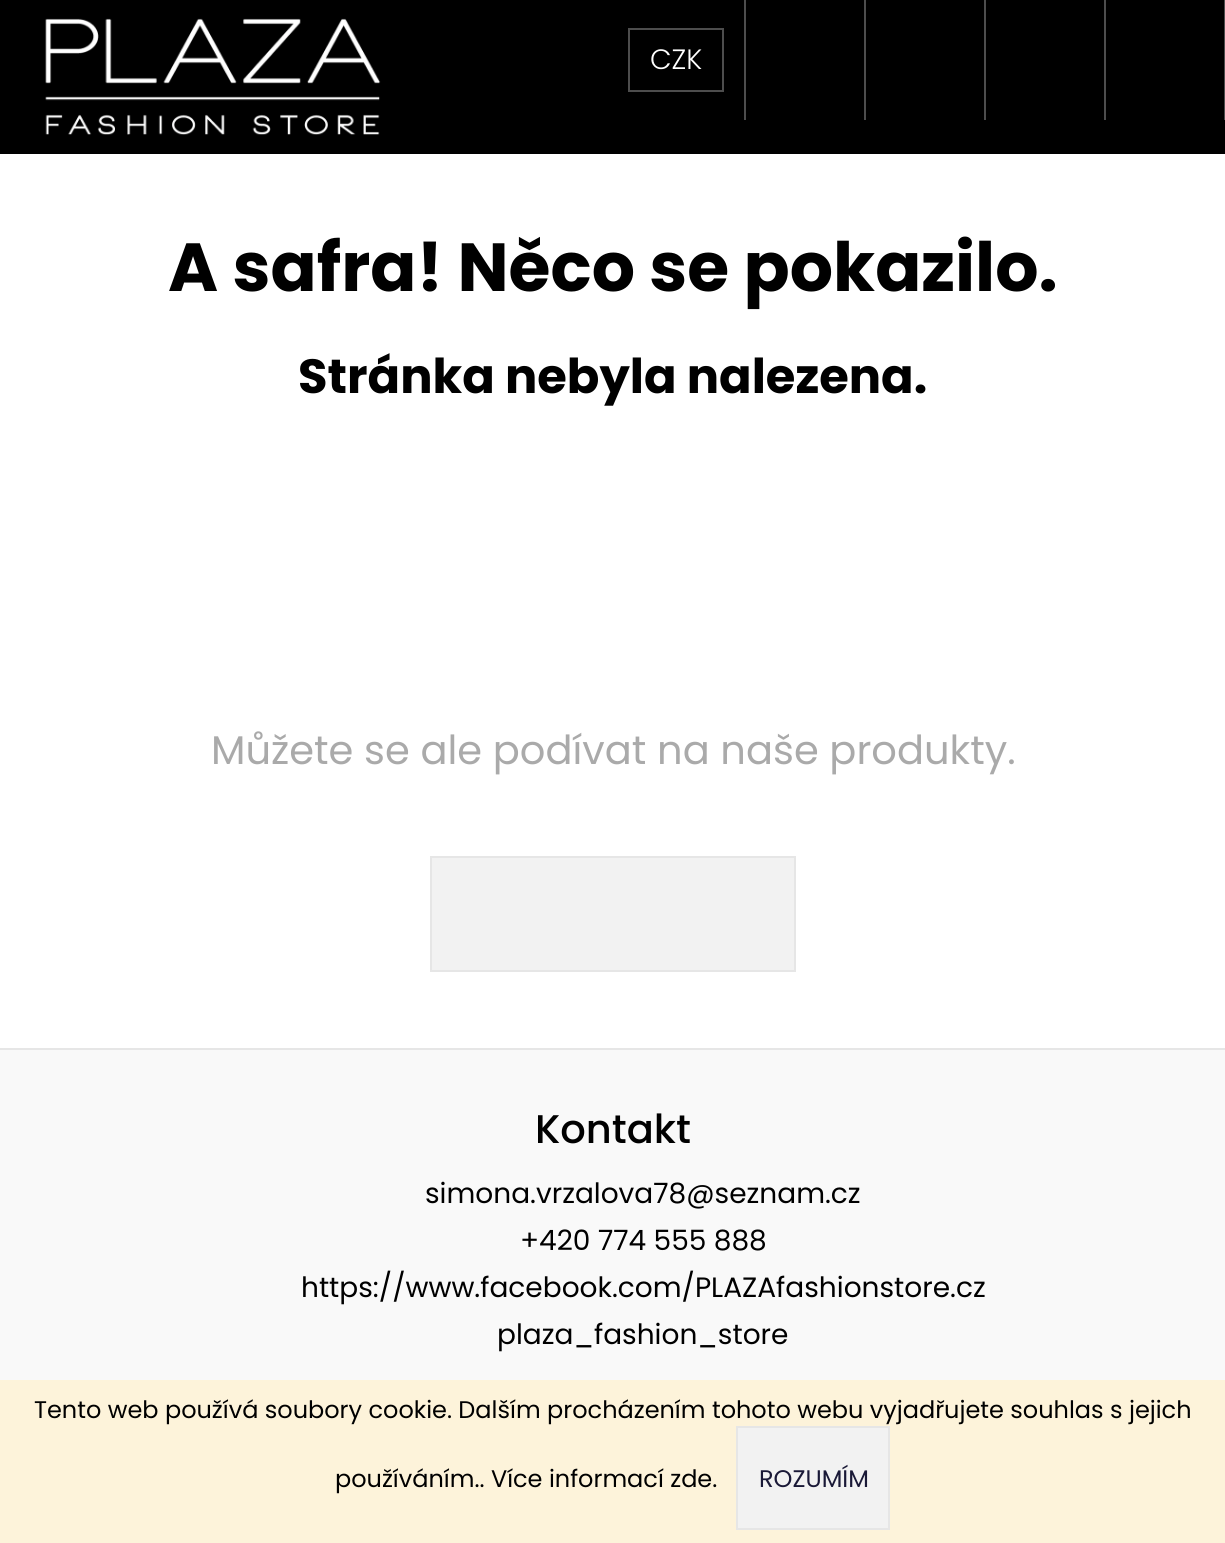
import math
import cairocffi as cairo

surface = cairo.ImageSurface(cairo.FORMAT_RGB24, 1225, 1543)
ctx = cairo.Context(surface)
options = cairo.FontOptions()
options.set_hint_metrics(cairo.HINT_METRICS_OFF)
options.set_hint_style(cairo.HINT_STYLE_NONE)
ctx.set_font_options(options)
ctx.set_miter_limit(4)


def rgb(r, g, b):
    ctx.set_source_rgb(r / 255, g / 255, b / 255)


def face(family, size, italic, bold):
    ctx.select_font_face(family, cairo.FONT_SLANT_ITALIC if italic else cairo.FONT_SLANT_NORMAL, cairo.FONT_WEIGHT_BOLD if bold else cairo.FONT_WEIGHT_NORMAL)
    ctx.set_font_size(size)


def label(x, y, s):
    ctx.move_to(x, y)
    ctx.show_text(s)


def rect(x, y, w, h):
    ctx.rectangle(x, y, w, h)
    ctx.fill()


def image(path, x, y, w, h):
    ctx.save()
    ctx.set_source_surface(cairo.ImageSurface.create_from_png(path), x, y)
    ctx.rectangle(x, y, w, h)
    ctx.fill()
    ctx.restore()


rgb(0, 0, 0)
ctx.paint()
image('image0.png', 45, 18, 336, 117)
rgb(77, 77, 77)
rect(1224, 0, 1, 120)
ctx.rectangle(629, 29, 94, 62)
ctx.stroke()
face('Poppins Light', 28, 0, 0)
rgb(255, 255, 255)
label(650, 69, 'CZK')
rgb(77, 77, 77)
rect(744, 0, 2, 120)
rect(864, 0, 2, 120)
rect(984, 0, 2, 120)
rect(1104, 0, 2, 120)
rgb(255, 255, 255)
rect(0, 154, 1225, 894)
face('Poppins', 68, 0, 1)
rgb(0, 0, 0)
label(168, 291, 'A safra! Něco se pokazilo.')
face('Poppins', 48, 0, 1)
label(298, 393, 'Stránka nebyla nalezena.')
face('Poppins', 40, 0, 0)
rgb(170, 170, 170)
label(211, 764, 'Můžete se ale podívat na naše produkty.')
rgb(242, 242, 242)
ctx.rectangle(431, 857, 364, 114)
ctx.fill_preserve()
rgb(230, 230, 230)
ctx.stroke()
rgb(249, 249, 249)
rect(0, 1050, 1225, 330)
rgb(230, 230, 230)
rect(0, 1048, 1225, 2)
face('Poppins Medium', 40, 0, 0)
rgb(0, 0, 0)
label(535, 1143, 'Kontakt')
face('Poppins', 28, 0, 0)
label(425, 1203, 'simona.vrzalova78@seznam.cz')
label(520, 1250, '+420 774 555 888')
label(301, 1297, 'https://www.facebook.com/PLAZAfashionstore.cz')
label(497, 1344, 'plaza_fashion_store')
rgb(253, 243, 218)
rect(0, 1380, 1225, 163)
face('Poppins', 24, 0, 0)
rgb(0, 0, 0)
label(34, 1418, 'Tento web používá soubory cookie. Dalším procházením tohoto webu vyjadřujete souhlas s jejich')
label(335, 1487, 'používáním.. Více informací zde.')
rgb(242, 242, 242)
ctx.rectangle(737, 1427, 152, 102)
ctx.fill_preserve()
rgb(230, 230, 230)
ctx.stroke()
rgb(26, 25, 55)
label(759, 1487, 'ROZUMÍM')
surface.write_to_png('render.png')
